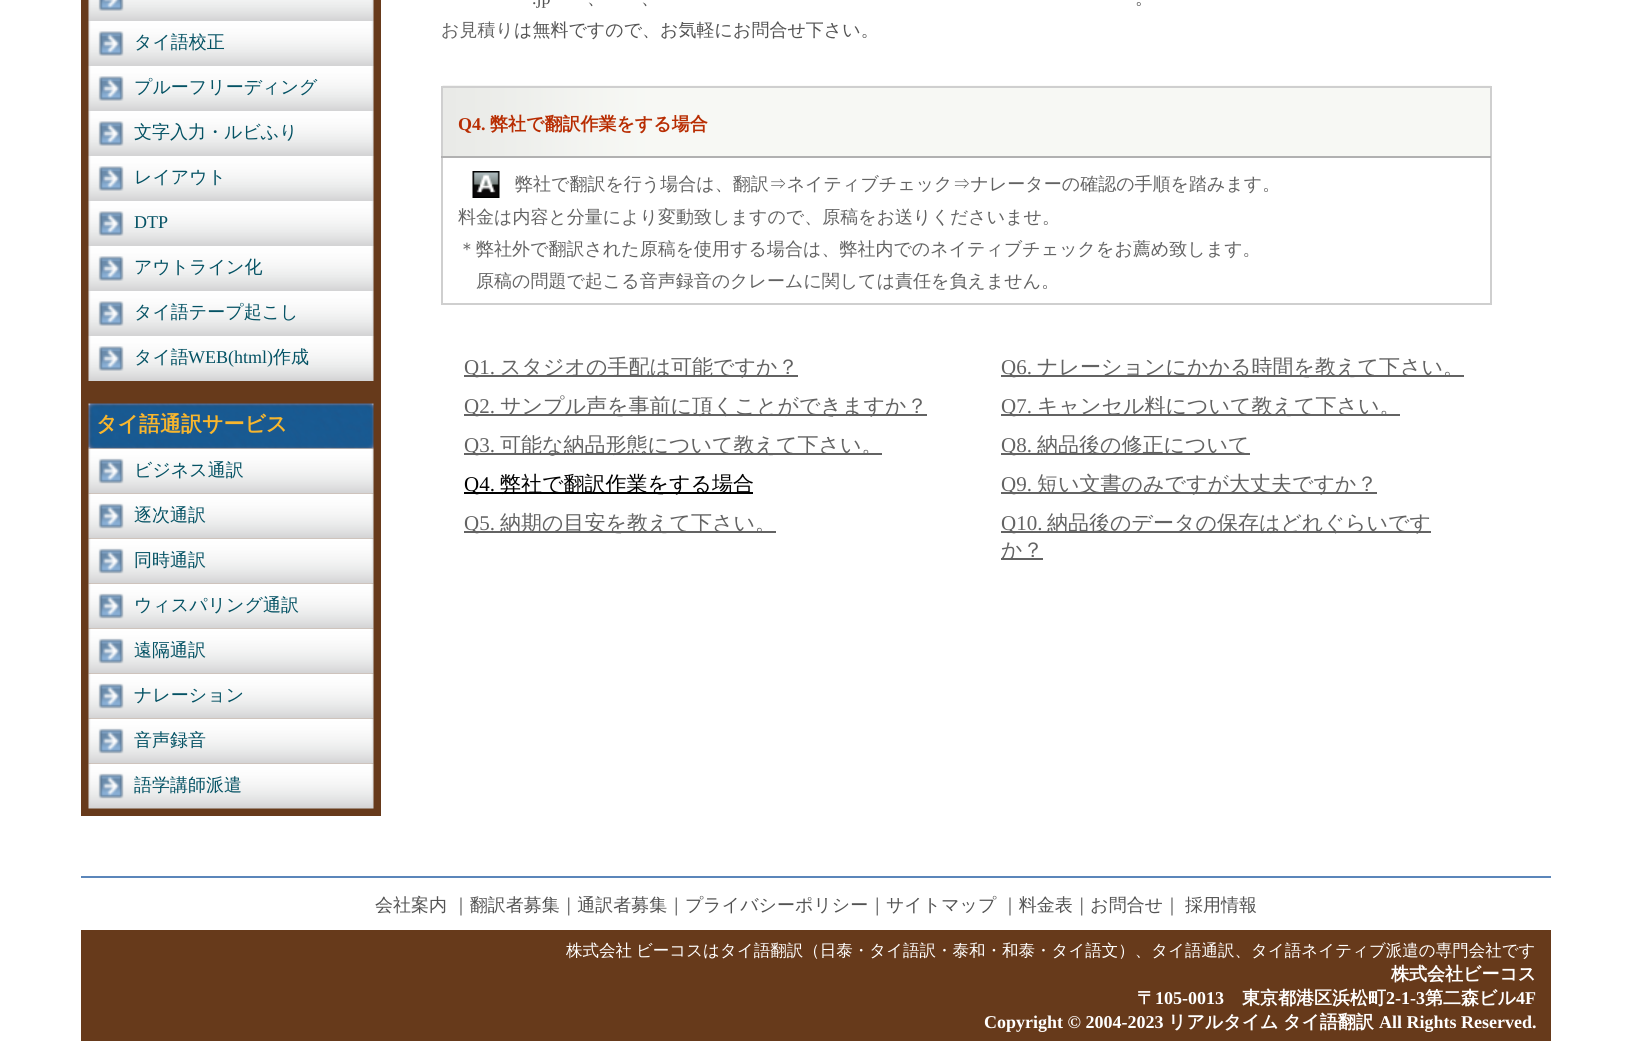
import math
import cairocffi as cairo

surface = cairo.ImageSurface(cairo.FORMAT_RGB24, 1632, 1041)
ctx = cairo.Context(surface)
options = cairo.FontOptions()
options.set_hint_metrics(cairo.HINT_METRICS_OFF)
options.set_hint_style(cairo.HINT_STYLE_NONE)
ctx.set_font_options(options)
ctx.set_miter_limit(4)


def rgb(r, g, b):
    ctx.set_source_rgb(r / 255, g / 255, b / 255)


def face(family, size, italic, bold):
    ctx.select_font_face(family, cairo.FONT_SLANT_ITALIC if italic else cairo.FONT_SLANT_NORMAL, cairo.FONT_WEIGHT_BOLD if bold else cairo.FONT_WEIGHT_NORMAL)
    ctx.set_font_size(size)


def label(x, y, s):
    ctx.move_to(x, y)
    ctx.show_text(s)


def tracked(x, y, s, letter, word):
    ctx.move_to(x, y)
    for ch in s:
        ctx.show_text(ch)
        ctx.rel_move_to(letter + word * (ch == ' '), 0)


def rect(x, y, w, h):
    ctx.rectangle(x, y, w, h)
    ctx.fill()


def image(path, x, y, w, h):
    ctx.save()
    ctx.set_source_surface(cairo.ImageSurface.create_from_png(path), x, y)
    ctx.rectangle(x, y, w, h)
    ctx.fill()
    ctx.restore()


rgb(255, 255, 255)
ctx.paint()
rgb(103, 58, 27)
rect(81, 0, 300, 816)
image('image0.png', 88, 0, 286, 21)
image('image1.png', 88, 21, 286, 45)
face('WenQuanYi Zen Hei Medium', 18, 0, 0)
rgb(4, 82, 100)
label(134, 48, 'タイ語校正')
image('image1.png', 88, 66, 286, 45)
label(134, 93, 'プルーフリーディング')
image('image1.png', 88, 111, 286, 45)
label(134, 138, '文字入力・ルビふり')
image('image1.png', 88, 156, 286, 45)
label(134, 183, 'レイアウト')
image('image1.png', 88, 201, 286, 45)
face('Liberation Serif', 18, 0, 0)
label(134, 228, 'DTP')
image('image1.png', 88, 246, 286, 45)
face('WenQuanYi Zen Hei Medium', 18, 0, 0)
label(134, 273, 'アウトライン化')
image('image1.png', 88, 291, 286, 45)
label(134, 318, 'タイ語テープ起こし')
image('image1.png', 88, 336, 286, 45)
label(134, 363, 'タイ語')
face('Liberation Serif', 18, 0, 0)
label(188, 363, 'WEB(html)')
face('WenQuanYi Zen Hei Medium', 18, 0, 0)
label(273, 363, '作成')
image('image2.png', 88, 403, 286, 46)
face('WenQuanYi Zen Hei', 21, 0, 1)
rgb(248, 182, 45)
label(96, 431, 'タイ語通訳サービス')
image('image3.png', 88, 448, 286, 46)
face('WenQuanYi Zen Hei Medium', 18, 0, 0)
rgb(4, 82, 100)
label(134, 476, 'ビジネス通訳')
image('image4.png', 88, 493, 286, 46)
label(134, 521, '逐次通訳')
image('image4.png', 88, 538, 286, 46)
label(134, 566, '同時通訳')
image('image4.png', 88, 583, 286, 46)
label(134, 611, 'ウィスパリング通訳')
image('image4.png', 88, 628, 286, 46)
label(134, 656, '遠隔通訳')
image('image4.png', 88, 673, 286, 46)
label(134, 701, 'ナレーション')
image('image4.png', 88, 718, 286, 46)
label(134, 746, '音声録音')
image('image4.png', 88, 763, 286, 46)
label(134, 791, '語学講師派遣')
face('Liberation Serif', 18, 0, 0)
rgb(83, 83, 83)
label(532, 4, '.jp')
face('WenQuanYi Zen Hei Medium', 18, 0, 0)
label(587, 4, '、')
label(641, 4, '、')
label(1135, 4, '。')
rgb(99, 99, 99)
label(441, 36, 'お見積り')
rgb(83, 83, 83)
label(514, 36, 'は無料ですので、お気軽にお問合せ下さい。')
image('image5.png', 442, 85, 1049, 71)
rgb(207, 207, 207)
rect(441, 86, 1050, 2)
rect(1490, 86, 2, 219)
rect(441, 303, 1050, 2)
rect(441, 86, 2, 219)
face('Liberation Serif', 18, 0, 1)
rgb(184, 45, 2)
label(458, 130, 'Q4.')
face('WenQuanYi Zen Hei', 18, 0, 1)
label(490, 130, '弊社で翻訳作業をする場合')
rgb(177, 177, 177)
rect(441, 156, 1050, 2)
image('image6.png', 472, 171, 28, 27)
face('WenQuanYi Zen Hei Medium', 18, 0, 0)
rgb(99, 99, 99)
label(515, 190, '弊社で翻訳を行う場合は、翻訳⇒ネイティブチェック⇒ナレーターの確認の手順を踏みます。')
label(458, 223, '料金は内容と分量により変動致しますので、原稿をお送りくださいませ。')
label(458, 255, '＊弊社外で翻訳された原稿を使用する場合は、弊社内でのネイティブチェックをお薦め致します。')
label(476, 287, '原稿の問題で起こる音声録音のクレームに関しては責任を負えません。')
rect(464, 375, 334, 2)
face('Liberation Serif', 21, 0, 0)
label(464, 374, 'Q1.')
face('WenQuanYi Zen Hei Medium', 21, 0, 0)
label(500, 374, 'スタジオの手配は可能ですか？')
rect(464, 414, 463, 2)
face('Liberation Serif', 21, 0, 0)
label(464, 413, 'Q2.')
face('WenQuanYi Zen Hei Medium', 21, 0, 0)
label(500, 413, 'サンプル声を事前に頂くことができますか？')
rect(464, 453, 418, 2)
face('Liberation Serif', 21, 0, 0)
label(464, 452, 'Q3.')
face('WenQuanYi Zen Hei Medium', 21, 0, 0)
label(500, 452, '可能な納品形態について教えて下さい。')
rgb(0, 0, 0)
rect(464, 492, 289, 2)
face('Liberation Serif', 21, 0, 0)
label(464, 491, 'Q4.')
face('WenQuanYi Zen Hei Medium', 21, 0, 0)
label(500, 491, '弊社で翻訳作業をする場合')
rgb(99, 99, 99)
rect(464, 531, 312, 2)
face('Liberation Serif', 21, 0, 0)
label(464, 530, 'Q5.')
face('WenQuanYi Zen Hei Medium', 21, 0, 0)
label(500, 530, '納期の目安を教えて下さい。')
rect(1001, 375, 463, 2)
face('Liberation Serif', 21, 0, 0)
label(1001, 374, 'Q6.')
face('WenQuanYi Zen Hei Medium', 21, 0, 0)
label(1037, 374, 'ナレーションにかかる時間を教えて下さい。')
rect(1001, 414, 399, 2)
face('Liberation Serif', 21, 0, 0)
label(1001, 413, 'Q7.')
face('WenQuanYi Zen Hei Medium', 21, 0, 0)
label(1037, 413, 'キャンセル料について教えて下さい。')
rect(1001, 453, 249, 2)
face('Liberation Serif', 21, 0, 0)
label(1001, 452, 'Q8.')
face('WenQuanYi Zen Hei Medium', 21, 0, 0)
label(1037, 452, '納品後の修正について')
rect(1001, 492, 376, 2)
face('Liberation Serif', 21, 0, 0)
label(1001, 491, 'Q9.')
face('WenQuanYi Zen Hei Medium', 21, 0, 0)
label(1037, 491, '短い文書のみですが大丈夫ですか？')
rect(1001, 531, 430, 2)
face('Liberation Serif', 21, 0, 0)
label(1001, 530, 'Q10.')
face('WenQuanYi Zen Hei Medium', 21, 0, 0)
label(1047, 530, '納品後のデータの保存はどれぐらいです')
rect(1001, 558, 42, 2)
label(1001, 557, 'か？')
rgb(91, 134, 186)
rect(81, 876, 1470, 2)
face('WenQuanYi Zen Hei Medium', 18, 0, 0)
rgb(83, 83, 83)
label(375, 911, '会社案内')
label(452, 911, '｜翻訳者募集｜通訳者募集｜プライバシーポリシー｜サイトマップ')
label(1001, 911, '｜料金表｜お問合せ｜')
label(1185, 911, '採用情報')
rgb(103, 58, 27)
rect(81, 930, 1470, 111)
face('WenQuanYi Zen Hei Medium', 16.5, 0, 0)
rgb(255, 255, 255)
tracked(566, 956, '株式会社 ビーコスはタイ語翻訳（日泰・タイ語訳・泰和・和泰・タイ語文）、タイ語通訳、タイ語ネイティブ派遣の専門会社です', 0, -1)
face('WenQuanYi Zen Hei', 18, 0, 1)
label(1391, 980, '株式会社ビーコス')
label(1137, 1004, '〒')
face('Liberation Serif', 18, 0, 1)
label(1155, 1004, '105-0013')
face('WenQuanYi Zen Hei', 18, 0, 1)
label(1242, 1004, '東京都港区浜松町')
face('Liberation Serif', 18, 0, 1)
label(1386, 1004, '2-1-3')
face('WenQuanYi Zen Hei', 18, 0, 1)
label(1425, 1004, '第二森ビル')
face('Liberation Serif', 18, 0, 1)
label(1516, 1004, '4F')
label(984, 1028, 'Copyright © 2004-2023')
face('WenQuanYi Zen Hei', 18, 0, 1)
label(1168, 1028, 'リアルタイム')
label(1283, 1028, 'タイ語翻訳')
face('Liberation Serif', 18, 0, 1)
label(1379, 1028, 'All Rights Reserved.')
surface.write_to_png('render.png')
